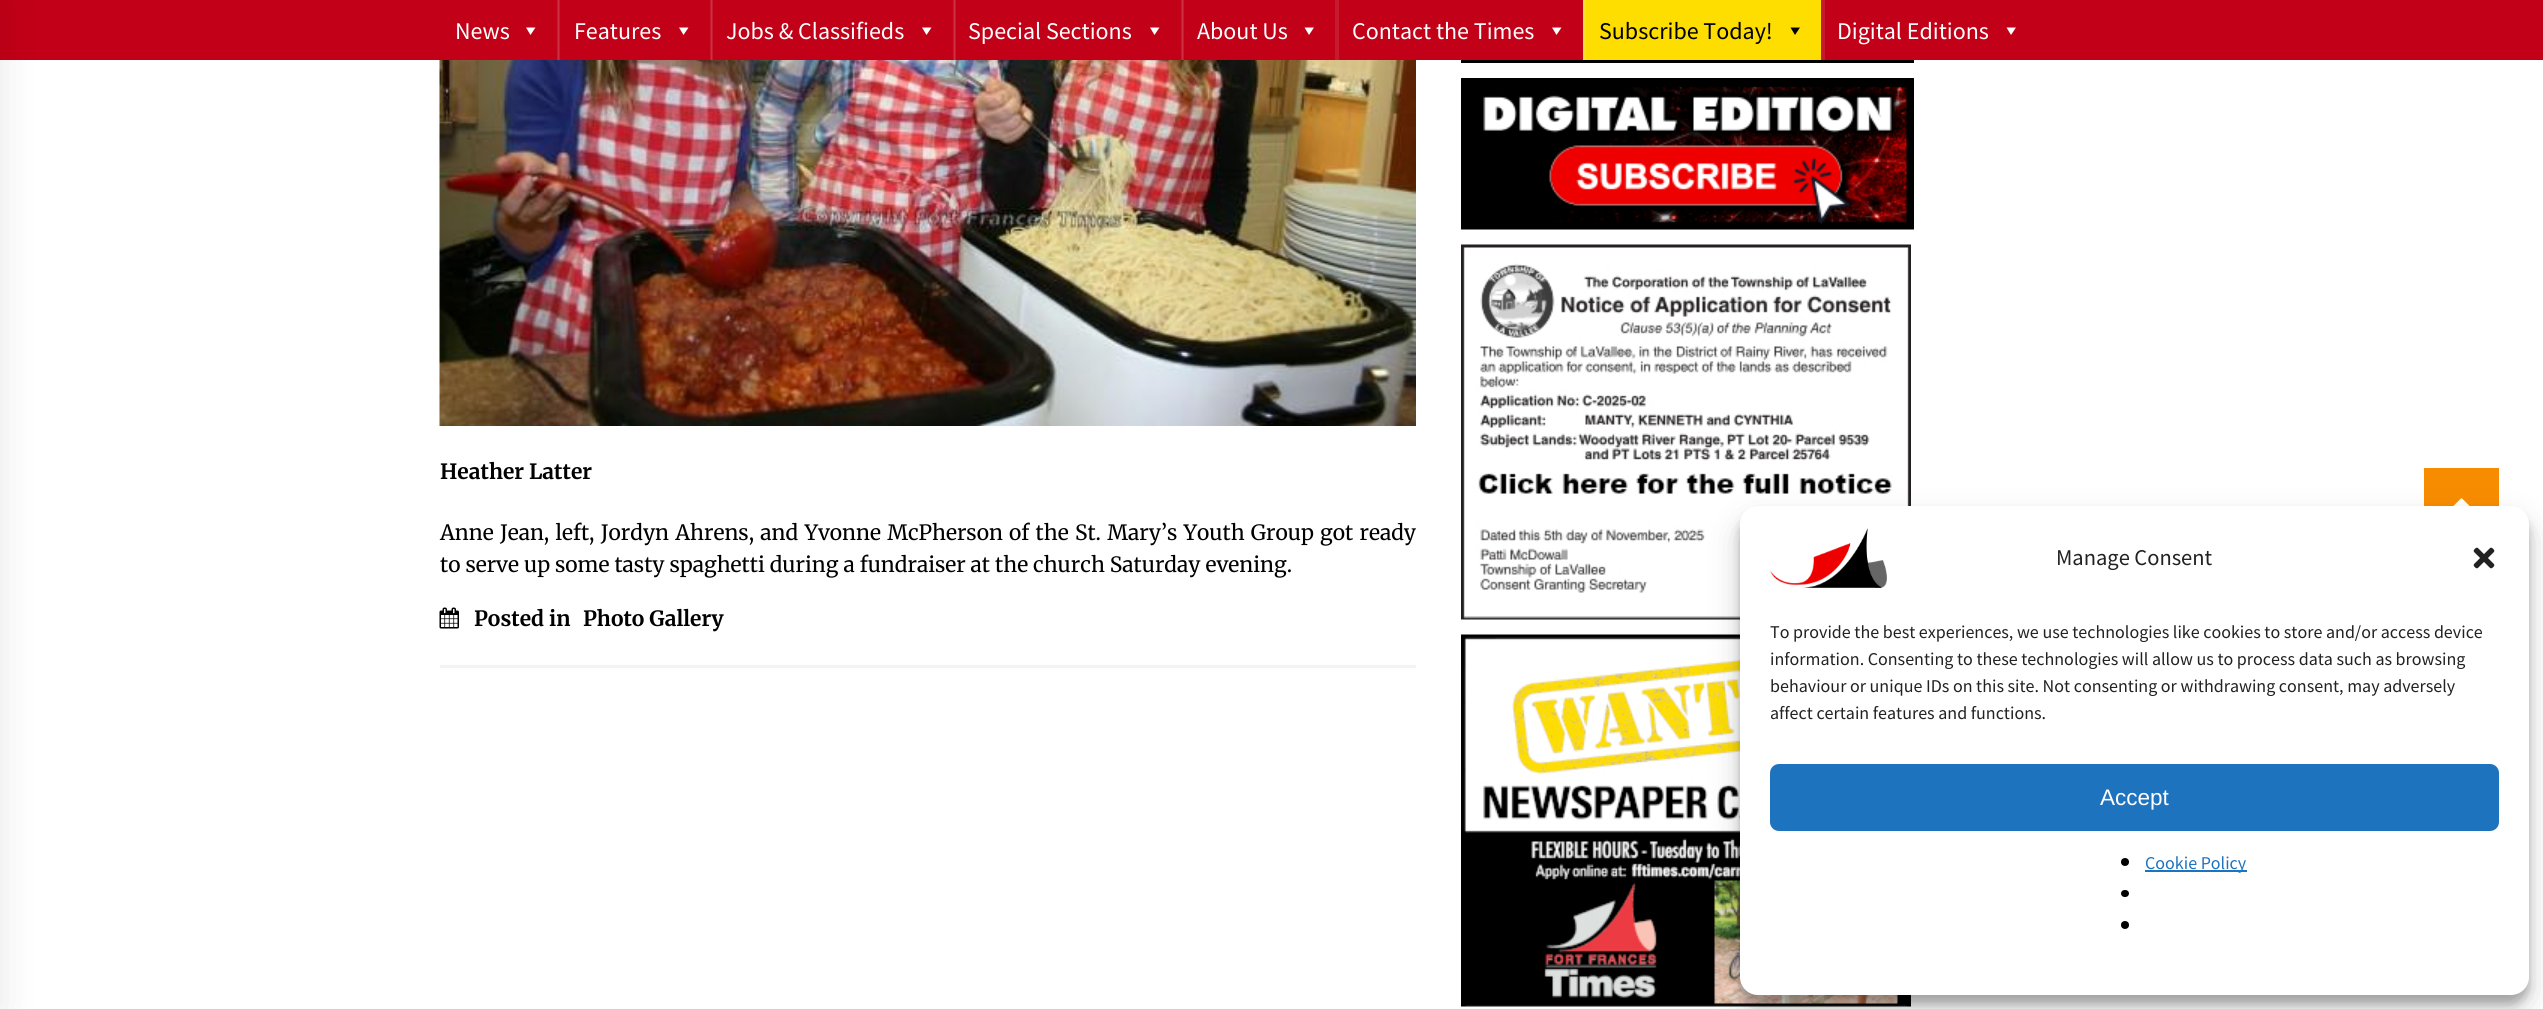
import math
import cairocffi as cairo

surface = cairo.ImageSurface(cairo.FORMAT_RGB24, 2543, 1009)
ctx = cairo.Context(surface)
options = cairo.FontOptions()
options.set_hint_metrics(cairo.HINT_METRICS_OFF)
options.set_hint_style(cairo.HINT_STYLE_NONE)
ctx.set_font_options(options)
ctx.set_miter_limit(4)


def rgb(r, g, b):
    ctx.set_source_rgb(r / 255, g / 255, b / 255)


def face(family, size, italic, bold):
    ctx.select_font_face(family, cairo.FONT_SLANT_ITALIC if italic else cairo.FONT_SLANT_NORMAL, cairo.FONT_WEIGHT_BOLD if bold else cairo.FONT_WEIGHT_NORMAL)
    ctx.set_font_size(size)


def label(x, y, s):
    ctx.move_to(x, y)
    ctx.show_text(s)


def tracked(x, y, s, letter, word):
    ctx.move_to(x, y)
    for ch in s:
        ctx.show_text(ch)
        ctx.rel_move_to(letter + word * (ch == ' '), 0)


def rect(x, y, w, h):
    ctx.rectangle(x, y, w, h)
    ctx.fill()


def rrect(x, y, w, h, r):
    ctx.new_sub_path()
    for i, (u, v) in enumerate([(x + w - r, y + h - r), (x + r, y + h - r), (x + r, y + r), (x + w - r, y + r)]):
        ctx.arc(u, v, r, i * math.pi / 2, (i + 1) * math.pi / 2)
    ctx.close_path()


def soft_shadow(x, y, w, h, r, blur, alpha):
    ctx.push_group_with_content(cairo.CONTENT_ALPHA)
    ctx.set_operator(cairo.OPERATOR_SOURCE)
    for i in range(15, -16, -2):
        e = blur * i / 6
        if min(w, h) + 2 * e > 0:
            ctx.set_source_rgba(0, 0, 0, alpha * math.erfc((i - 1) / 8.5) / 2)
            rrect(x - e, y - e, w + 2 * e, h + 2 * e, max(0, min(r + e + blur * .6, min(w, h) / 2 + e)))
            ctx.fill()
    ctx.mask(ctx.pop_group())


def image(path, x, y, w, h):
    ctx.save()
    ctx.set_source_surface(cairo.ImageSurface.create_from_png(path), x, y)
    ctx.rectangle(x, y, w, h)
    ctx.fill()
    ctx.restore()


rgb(255, 255, 255)
ctx.paint()
rgb(194, 0, 23)
rect(0, 0, 2543, 60)
rgb(0, 0, 0)
soft_shadow(-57, 0, 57, 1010, 0, 19, 0.1)
face('Source Sans Pro', 24, 0, 0)
rgb(255, 255, 255)
label(455, 39, 'News')
ctx.new_path()
ctx.move_to(535.5, 27.5)
ctx.line_to(530.5, 35)
ctx.line_to(526, 27.5)
ctx.close_path()
ctx.fill()
rgb(200, 26, 46)
rect(558, 0, 2, 60)
ctx.set_source_rgba(1, 1, 1, 0.1)
rect(557, 0, 2, 60)
rgb(255, 255, 255)
label(574, 39, 'Features')
ctx.new_path()
ctx.move_to(688.5, 27.5)
ctx.line_to(683.5, 35)
ctx.line_to(679, 27.5)
ctx.close_path()
ctx.fill()
rgb(200, 26, 46)
rect(711, 0, 2, 60)
ctx.set_source_rgba(1, 1, 1, 0.1)
rect(710, 0, 2, 60)
rgb(255, 255, 255)
label(726, 39, 'Jobs & Classifieds')
ctx.new_path()
ctx.move_to(931.5, 27.5)
ctx.line_to(926.5, 35)
ctx.line_to(922, 27.5)
ctx.close_path()
ctx.fill()
rgb(200, 26, 46)
rect(954, 0, 2, 60)
ctx.set_source_rgba(1, 1, 1, 0.1)
rect(953, 0, 2, 60)
rgb(255, 255, 255)
label(968, 39, 'Special Sections')
ctx.new_path()
ctx.move_to(1159.5, 27.5)
ctx.line_to(1154.5, 35)
ctx.line_to(1150, 27.5)
ctx.close_path()
ctx.fill()
rgb(200, 26, 46)
rect(1182, 0, 2, 60)
ctx.set_source_rgba(1, 1, 1, 0.1)
rect(1181, 0, 2, 60)
rgb(255, 255, 255)
label(1197, 39, 'About Us')
ctx.new_path()
ctx.move_to(1314, 27.5)
ctx.line_to(1309, 35)
ctx.line_to(1304.5, 27.5)
ctx.close_path()
ctx.fill()
rgb(200, 26, 46)
rect(1335, 0, 4, 60)
rgb(255, 255, 255)
label(1352, 39, 'Contact the Times')
ctx.new_path()
ctx.move_to(1561.5, 27.5)
ctx.line_to(1556.5, 35)
ctx.line_to(1552, 27.5)
ctx.close_path()
ctx.fill()
rgb(254, 221, 0)
rect(1583, 0, 238, 60)
rgb(254, 224, 26)
rect(1584, 0, 2, 60)
ctx.set_source_rgba(1, 1, 1, 0.1)
rect(1583, 0, 2, 60)
rgb(0, 0, 0)
label(1599, 39, 'Subscribe Today!')
ctx.new_path()
ctx.move_to(1800, 27.5)
ctx.line_to(1795, 35)
ctx.line_to(1790.5, 27.5)
ctx.close_path()
ctx.fill()
rgb(200, 26, 46)
rect(1821, 0, 4, 60)
rgb(255, 255, 255)
label(1837, 39, 'Digital Editions')
ctx.new_path()
ctx.move_to(2016, 27.5)
ctx.line_to(2011, 35)
ctx.line_to(2006.5, 27.5)
ctx.close_path()
ctx.fill()
image('image0.png', 439, 60, 977, 366)
face('Merriweather', 21, 0, 1)
rgb(0, 0, 0)
label(440, 479, 'Heather Latter')
face('Merriweather', 21, 0, 0)
tracked(440, 540, 'Anne Jean, left, Jordyn Ahrens, and Yvonne McPherson of the St. Mary’s Youth Group got ready', 0, 1.3)
label(440, 572, 'to serve up some tasty spaghetti during a fundraiser at the church Saturday evening.')
rgb(243, 243, 243)
rect(440, 665, 976, 3)
image('image1.png', 439, 607, 20, 22)
face('Merriweather', 21, 0, 1)
rgb(0, 0, 0)
label(474, 626, 'Posted in')
label(583, 626, 'Photo Gallery')
image('image2.png', 1461, 60, 453, 3)
image('image3.png', 1461, 78, 453, 152)
image('image4.png', 1461, 244, 450, 376)
image('image5.png', 1461, 634, 450, 373)
rgb(248, 140, 0)
rect(2424, 468, 75, 38)
image('image6.png', 2453, 498, 17, 8)
rgb(0, 0, 0)
soft_shadow(1740, 515, 789, 489, 18, 4.5, 0.23)
soft_shadow(1740, 521, 789, 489, 18, 15, 0.19)
rgb(255, 255, 255)
rrect(1740, 506, 789, 489, 18)
ctx.fill()
image('image7.png', 1770, 528, 117, 60)
face('Source Sans Pro', 22.5, 0, 0)
rgb(34, 34, 34)
label(2056, 565, 'Manage Consent')
image('image8.png', 2473, 547, 22, 22)
face('Source Sans Pro', 18, 0, 0)
label(1770, 638, 'To provide the best experiences, we use technologies like cookies to store and/or access device')
label(1770, 665, 'information. Consenting to these technologies will allow us to process data such as browsing')
label(1770, 692, 'behaviour or unique IDs on this site. Not consenting or withdrawing consent, may adversely')
label(1770, 719, 'affect certain features and functions.')
rgb(30, 115, 190)
rrect(1771, 765, 727, 65, 8)
ctx.fill_preserve()
ctx.stroke()
face('Liberation Sans', 22.5, 0, 0)
rgb(255, 255, 255)
label(2100, 805, 'Accept')
rgb(0, 0, 0)
ctx.new_path()
ctx.arc(2125, 862, 4, 0, 2 * math.pi)
ctx.fill()
rgb(30, 115, 190)
rect(2145, 870, 102, 2)
face('Source Sans Pro', 18, 0, 0)
label(2145, 869, 'Cookie Policy')
rgb(0, 0, 0)
rrect(2121, 890, 8, 7, 3.5)
ctx.fill()
ctx.arc(2125, 925, 4, 0, 2 * math.pi)
ctx.fill()
surface.write_to_png('render.png')
